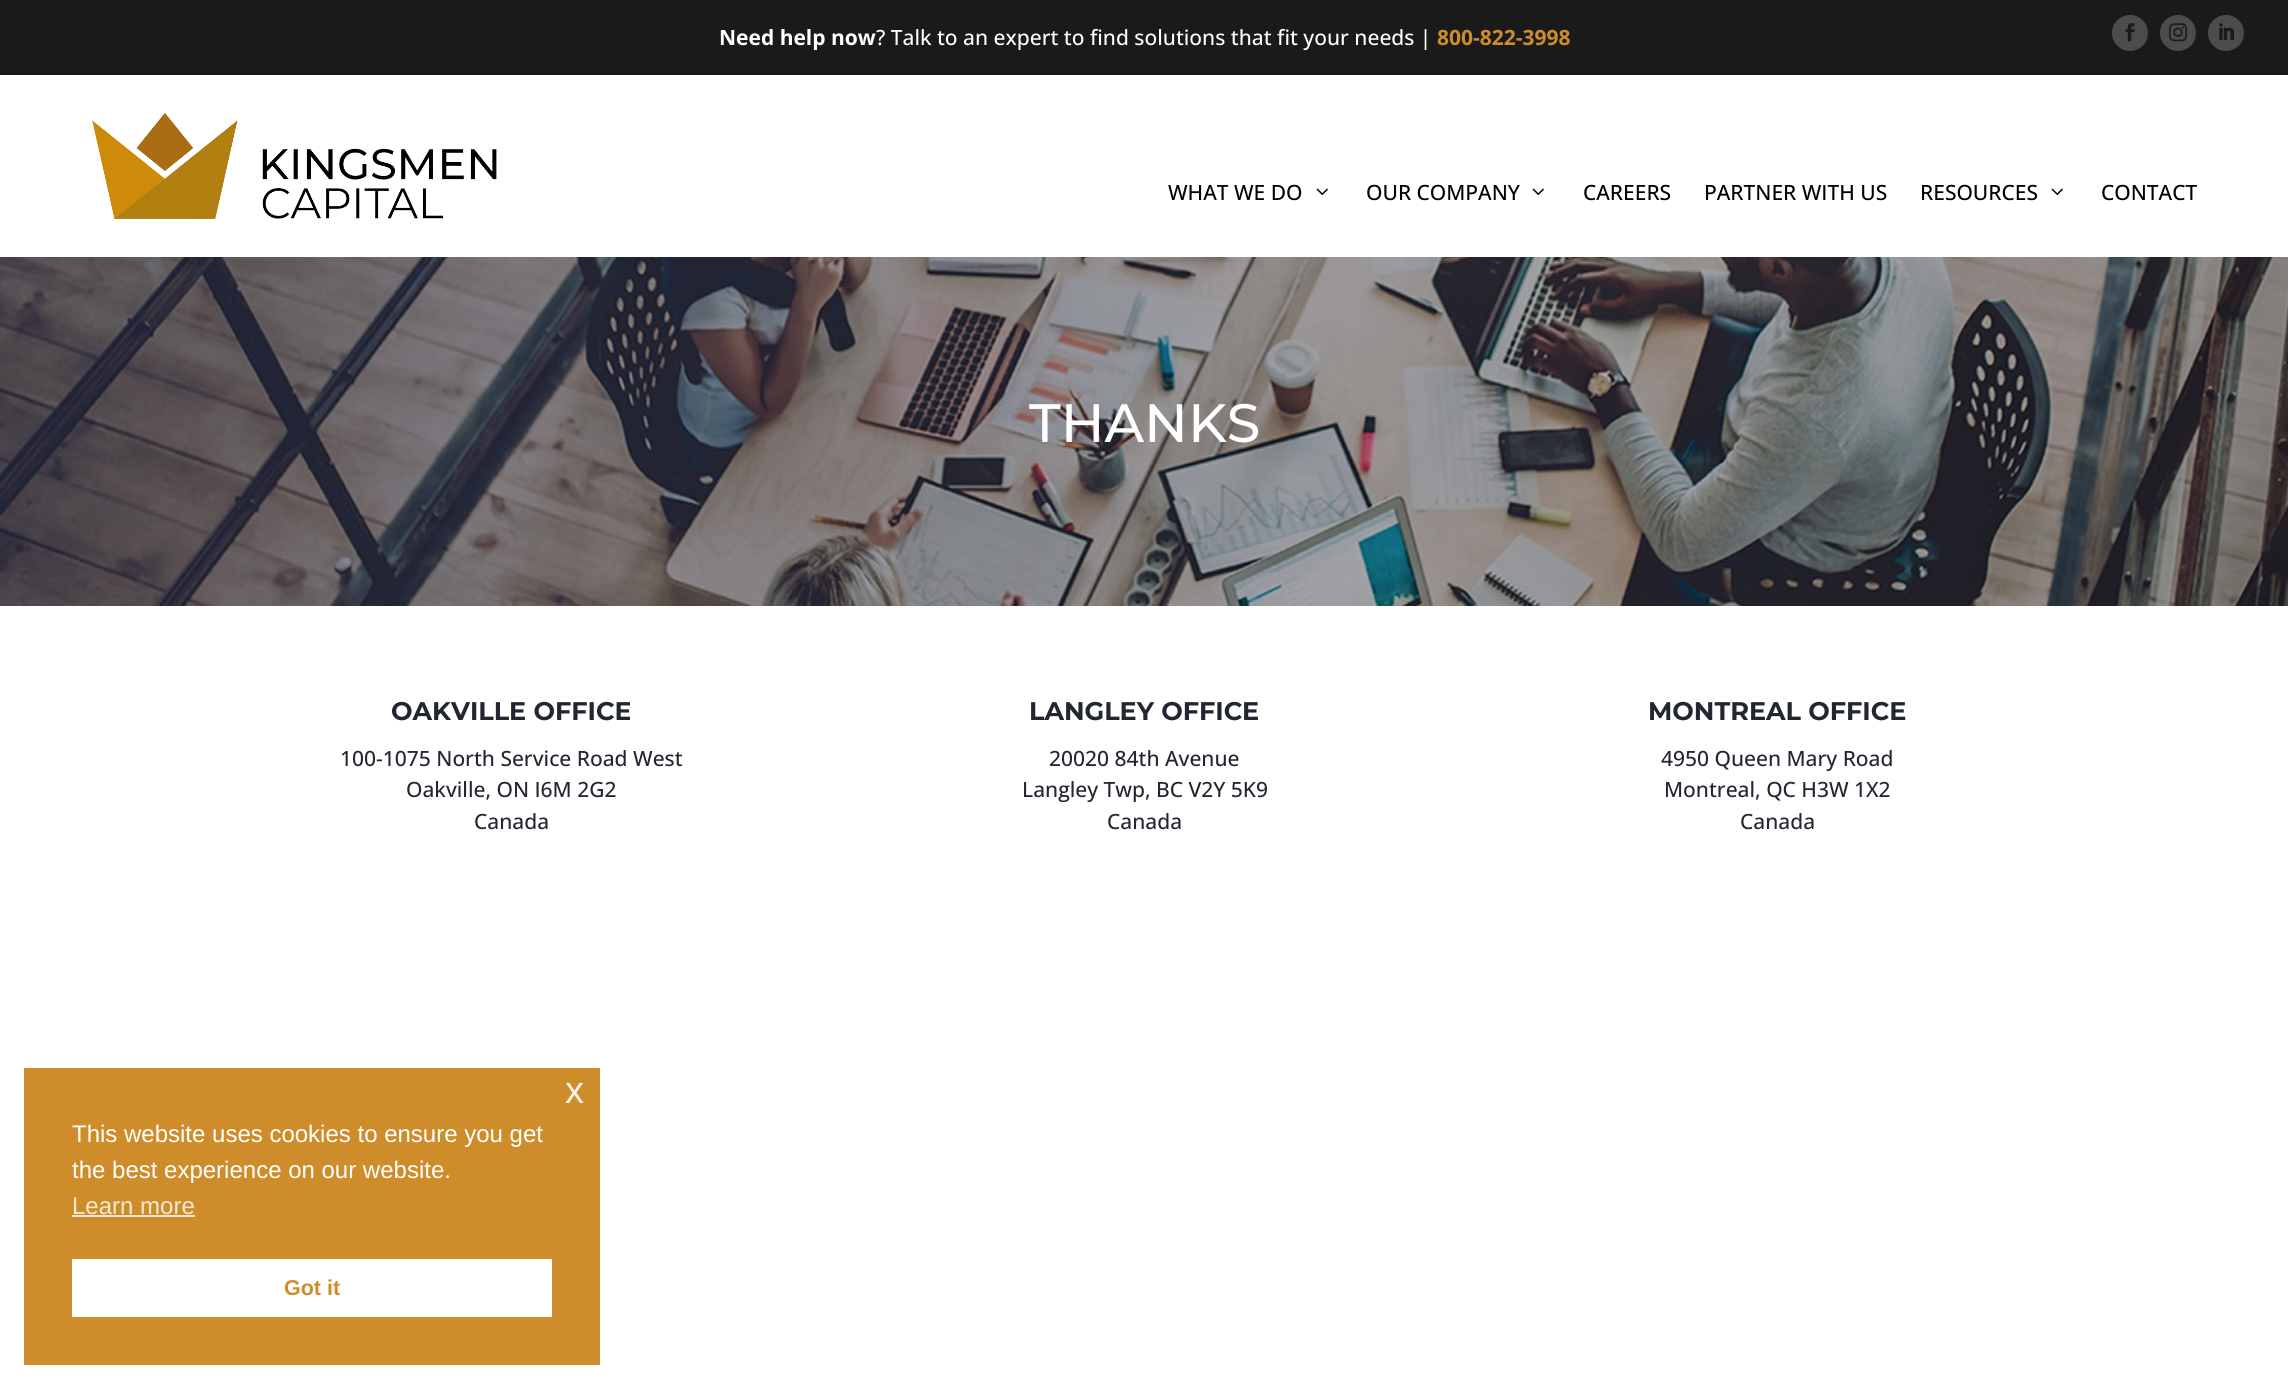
import math
import cairocffi as cairo

surface = cairo.ImageSurface(cairo.FORMAT_RGB24, 2288, 1388)
ctx = cairo.Context(surface)
options = cairo.FontOptions()
options.set_hint_metrics(cairo.HINT_METRICS_OFF)
options.set_hint_style(cairo.HINT_STYLE_NONE)
ctx.set_font_options(options)
ctx.set_miter_limit(4)


def rgb(r, g, b):
    ctx.set_source_rgb(r / 255, g / 255, b / 255)


def face(family, size, italic, bold):
    ctx.select_font_face(family, cairo.FONT_SLANT_ITALIC if italic else cairo.FONT_SLANT_NORMAL, cairo.FONT_WEIGHT_BOLD if bold else cairo.FONT_WEIGHT_NORMAL)
    ctx.set_font_size(size)


def label(x, y, s):
    ctx.move_to(x, y)
    ctx.show_text(s)


def rect(x, y, w, h):
    ctx.rectangle(x, y, w, h)
    ctx.fill()


def image(path, x, y, w, h):
    ctx.save()
    ctx.set_source_surface(cairo.ImageSurface.create_from_png(path), x, y)
    ctx.rectangle(x, y, w, h)
    ctx.fill()
    ctx.restore()


rgb(255, 255, 255)
ctx.paint()
rgb(26, 26, 26)
rect(0, 0, 2288, 75)
face('Open Sans', 21, 0, 1)
rgb(255, 255, 255)
label(719, 45, 'Need help now')
face('Open Sans Medium', 21, 0, 0)
label(876, 45, '? Talk to an expert to find solutions that fit your needs |')
face('Open Sans', 21, 0, 1)
rgb(207, 140, 42)
label(1437, 45, '800-822-3998')
rgb(76, 76, 76)
ctx.new_path()
ctx.arc(2130, 33, 18, 0, 2 * math.pi)
ctx.fill()
image('image0.png', 2125, 23, 10, 19)
ctx.arc(2178, 33, 18, 0, 2 * math.pi)
ctx.fill()
image('image1.png', 2169, 23, 18, 19)
ctx.arc(2226, 33, 18, 0, 2 * math.pi)
ctx.fill()
image('image2.png', 2219, 23, 15, 18)
image('image3.png', 92, 112, 405, 107)
face('Open Sans Medium', 21, 0, 0)
rgb(0, 0, 0)
label(1168, 200, 'WHAT WE DO')
image('image4.png', 1316, 188, 12, 7)
label(1366, 200, 'OUR COMPANY')
image('image4.png', 1532, 188, 12, 7)
label(1583, 200, 'CAREERS')
label(1704, 200, 'PARTNER WITH US')
label(1920, 200, 'RESOURCES')
image('image4.png', 2051, 188, 12, 7)
label(2101, 200, 'CONTACT')
image('image5.png', 0, 257, 2288, 349)
face('Montserrat Medium', 54, 0, 0)
rgb(255, 255, 255)
label(1029, 442, 'THANKS')
face('Montserrat', 25.5, 0, 1)
rgb(34, 38, 49)
label(391, 720, 'OAKVILLE OFFICE')
face('Open Sans Medium', 21, 0, 0)
label(340, 766, '100-1075 North Service Road West')
label(406, 797, 'Oakville, ON I6M 2G2')
label(474, 829, 'Canada')
face('Montserrat', 25.5, 0, 1)
label(1029, 720, 'LANGLEY OFFICE')
face('Open Sans Medium', 21, 0, 0)
label(1049, 766, '20020 84th Avenue')
label(1022, 797, 'Langley Twp, BC V2Y 5K9')
label(1107, 829, 'Canada')
face('Montserrat', 25.5, 0, 1)
label(1648, 720, 'MONTREAL OFFICE')
face('Open Sans Medium', 21, 0, 0)
label(1661, 766, '4950 Queen Mary Road')
label(1664, 797, 'Montreal, QC H3W 1X2')
label(1740, 829, 'Canada')
rgb(207, 140, 42)
rect(24, 1068, 576, 297)
face('Liberation Sans', 38, 0, 0)
rgb(250, 244, 234)
label(565, 1103, 'x')
face('Liberation Sans', 24, 0, 0)
rgb(255, 255, 255)
label(72, 1142, 'This website uses cookies to ensure you get')
label(72, 1178, 'the best experience on our website.')
rgb(245, 232, 212)
label(72, 1214, 'Learn more')
rect(72, 1215, 123, 2)
rgb(255, 255, 255)
rect(72, 1259, 480, 58)
face('Liberation Sans', 21.5, 0, 1)
rgb(207, 140, 42)
label(284, 1295, 'Got it')
surface.write_to_png('render.png')
